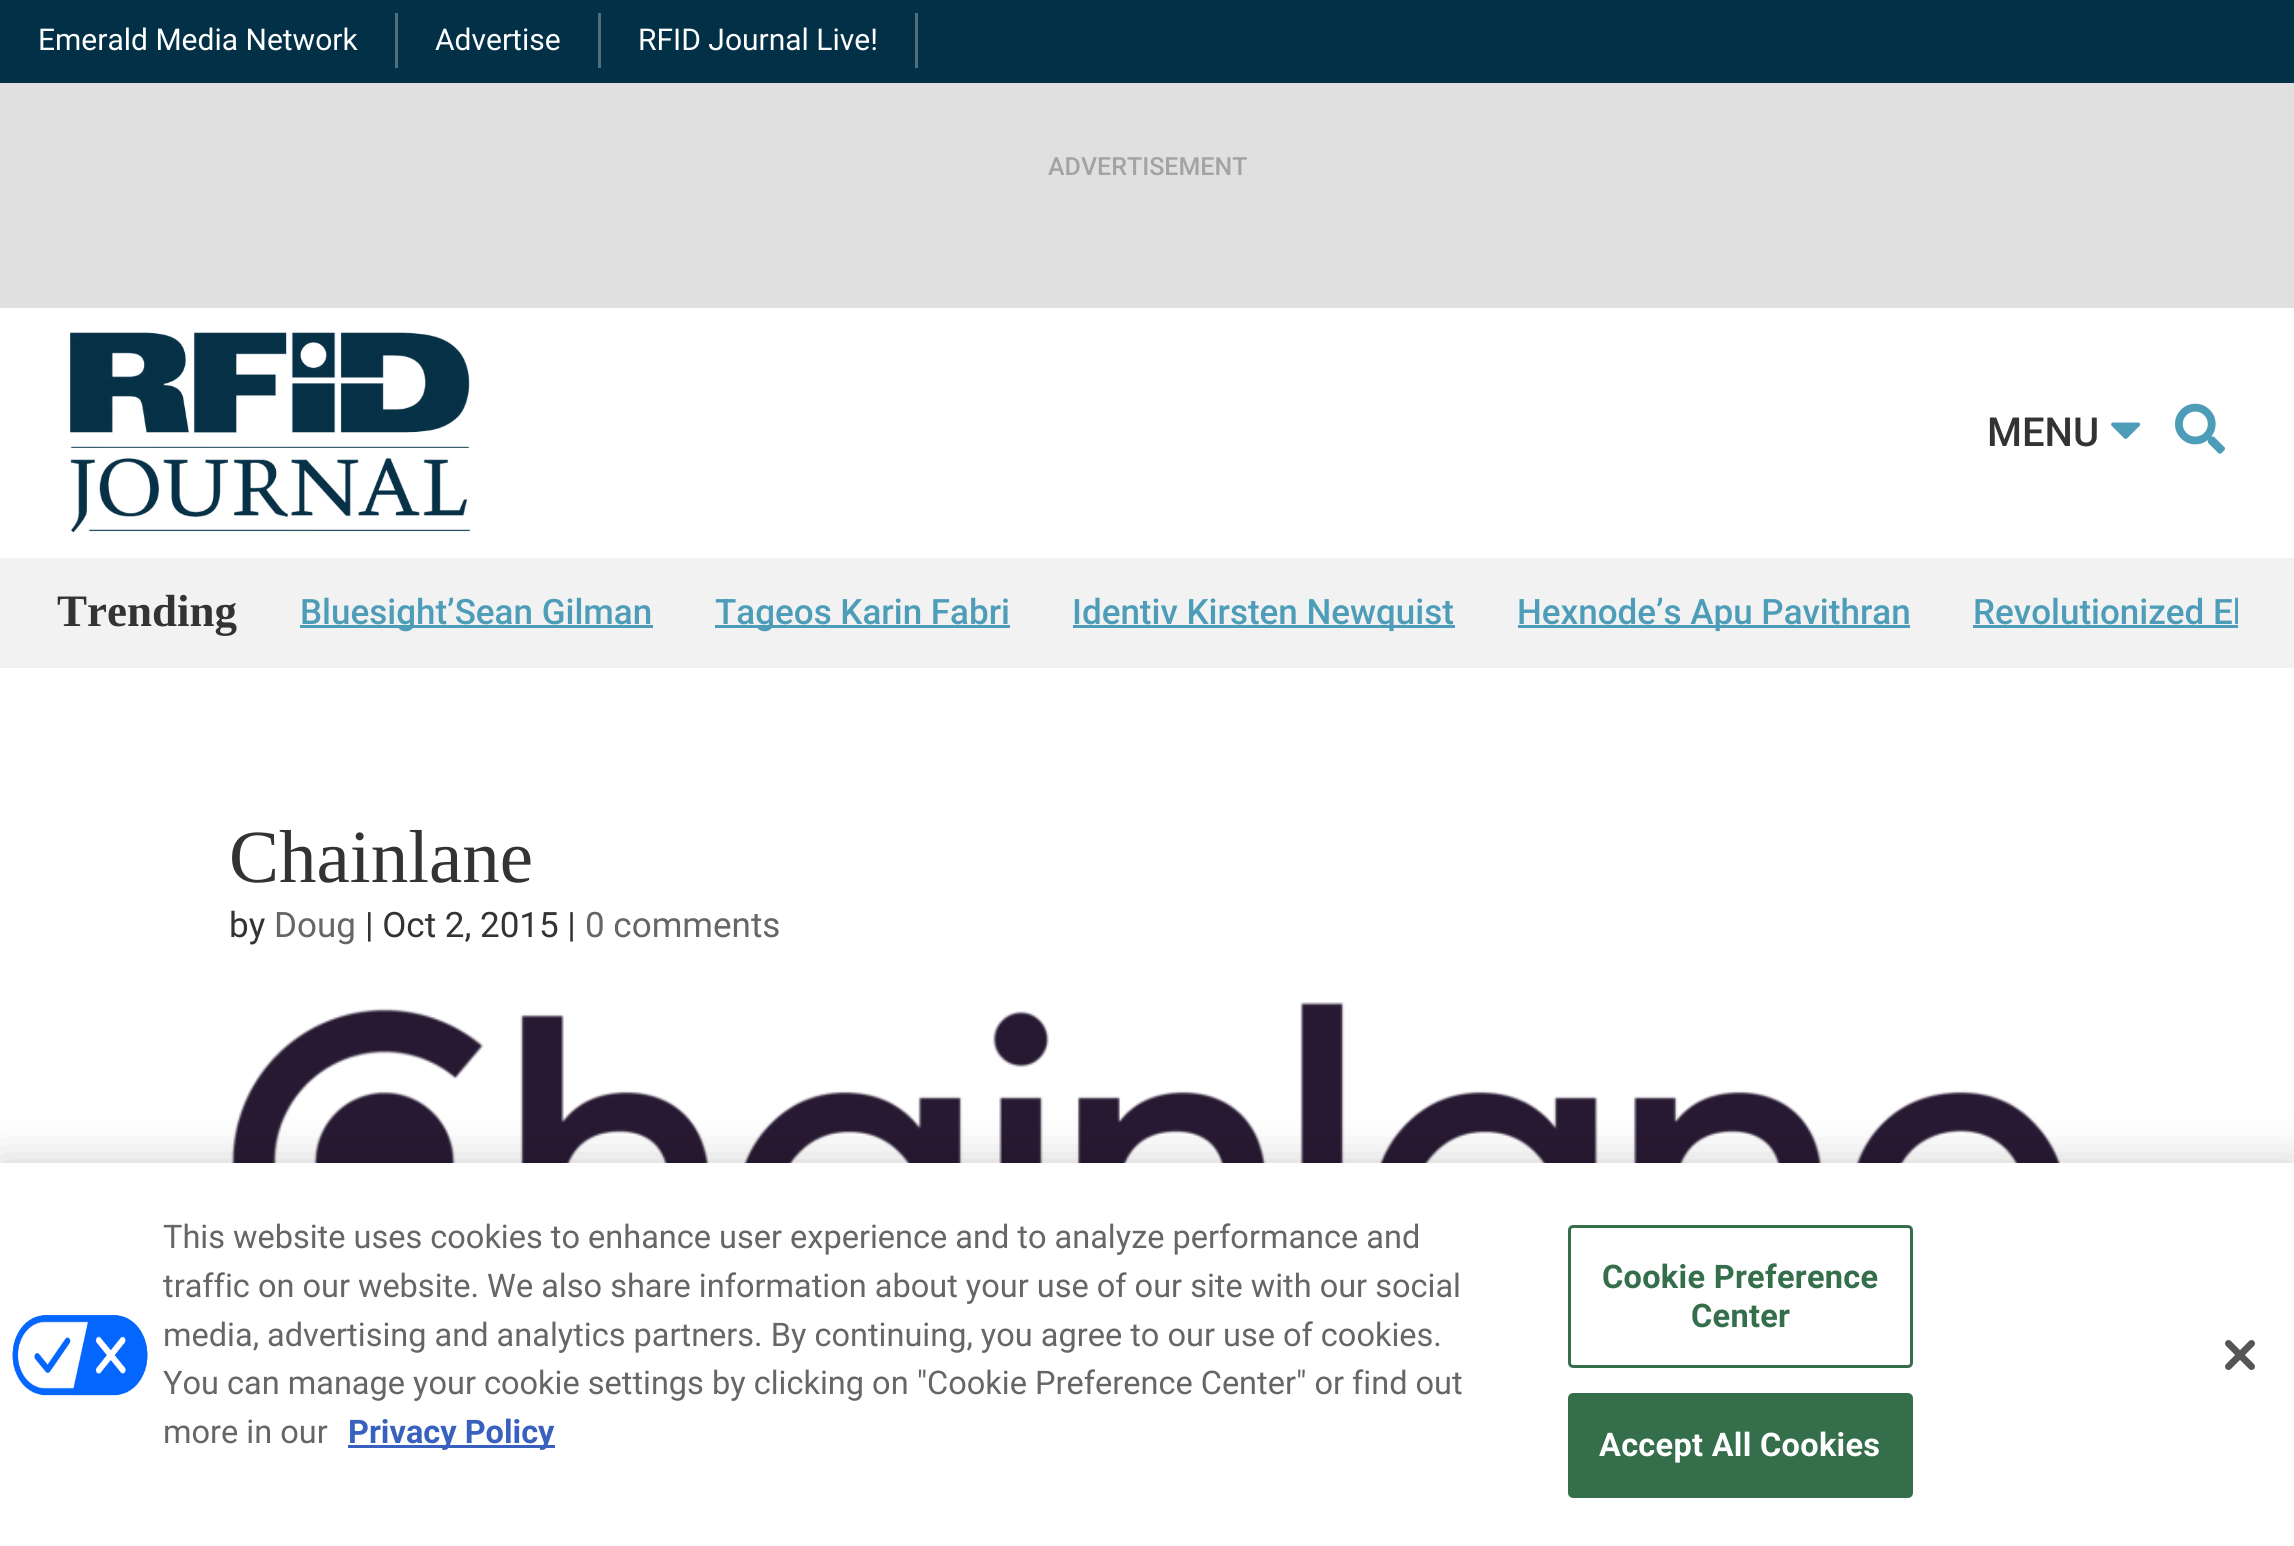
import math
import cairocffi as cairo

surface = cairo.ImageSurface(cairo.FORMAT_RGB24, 2294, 1546)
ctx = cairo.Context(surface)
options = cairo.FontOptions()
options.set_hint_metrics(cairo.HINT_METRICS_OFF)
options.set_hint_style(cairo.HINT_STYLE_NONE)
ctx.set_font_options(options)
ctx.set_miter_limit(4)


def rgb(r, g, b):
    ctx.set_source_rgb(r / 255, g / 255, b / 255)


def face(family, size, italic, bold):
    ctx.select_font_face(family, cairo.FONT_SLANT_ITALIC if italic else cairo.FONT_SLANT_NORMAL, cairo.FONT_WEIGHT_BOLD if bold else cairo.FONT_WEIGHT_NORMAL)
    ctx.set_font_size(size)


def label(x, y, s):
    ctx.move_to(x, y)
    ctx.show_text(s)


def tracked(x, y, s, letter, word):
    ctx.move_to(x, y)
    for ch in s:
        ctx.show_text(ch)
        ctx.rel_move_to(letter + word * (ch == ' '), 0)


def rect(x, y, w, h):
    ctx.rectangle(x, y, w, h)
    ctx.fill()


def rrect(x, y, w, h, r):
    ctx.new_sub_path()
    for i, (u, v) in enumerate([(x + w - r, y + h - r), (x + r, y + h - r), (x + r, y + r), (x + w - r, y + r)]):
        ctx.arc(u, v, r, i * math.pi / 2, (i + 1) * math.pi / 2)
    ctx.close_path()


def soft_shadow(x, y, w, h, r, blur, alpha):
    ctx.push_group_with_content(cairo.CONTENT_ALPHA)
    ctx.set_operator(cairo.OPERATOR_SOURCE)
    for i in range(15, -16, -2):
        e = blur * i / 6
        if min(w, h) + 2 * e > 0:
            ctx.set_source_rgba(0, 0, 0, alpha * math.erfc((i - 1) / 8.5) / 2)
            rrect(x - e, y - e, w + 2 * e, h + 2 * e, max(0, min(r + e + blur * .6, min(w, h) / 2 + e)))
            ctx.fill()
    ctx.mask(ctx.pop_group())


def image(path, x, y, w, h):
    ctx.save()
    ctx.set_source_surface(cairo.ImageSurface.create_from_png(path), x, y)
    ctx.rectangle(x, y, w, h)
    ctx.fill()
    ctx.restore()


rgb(255, 255, 255)
ctx.paint()
rgb(2, 48, 70)
rect(0, 0, 2294, 83)
rgb(78, 110, 126)
rect(395, 13, 3, 55)
face('Roboto', 30, 0, 0)
rgb(255, 255, 255)
label(38, 50, 'Emerald Media Network')
rgb(78, 110, 126)
rect(598, 13, 3, 55)
rgb(255, 255, 255)
label(435, 50, 'Advertise')
rgb(78, 110, 126)
rect(915, 13, 3, 55)
rgb(255, 255, 255)
label(638, 50, 'RFID Journal Live!')
rgb(224, 224, 224)
rect(0, 83, 2294, 225)
face('Roboto Medium', 25, 0, 0)
rgb(163, 163, 163)
label(1048, 175, 'ADVERTISEMENT')
image('image0.png', 70, 332, 400, 201)
face('Roboto Medium', 40, 0, 0)
rgb(51, 51, 51)
label(1987, 446, 'MENU')
image('image1.png', 2111, 422, 30, 17)
image('image2.png', 2175, 403, 50, 51)
rgb(242, 242, 242)
rect(0, 558, 2294, 110)
face('Liberation Serif', 45, 0, 1)
rgb(51, 51, 51)
label(57, 626, 'Trending')
rgb(77, 157, 185)
rect(300, 625, 353, 3)
face('Roboto Medium', 35, 0, 0)
label(300, 624, 'Bluesight’Sean Gilman')
rect(715, 625, 295, 3)
label(715, 624, 'Tageos Karin Fabri')
rect(1073, 625, 382, 3)
label(1072, 624, 'Identiv Kirsten Newquist')
rect(1518, 625, 392, 3)
label(1517, 624, 'Hexnode’s Apu Pavithran')
ctx.save()
ctx.rectangle(58, 578, 2180, 70)
ctx.clip()
label(1973, 624, 'Revolutionized El')
ctx.restore()
rect(1973, 625, 265, 3)
face('Liberation Serif', 75, 0, 0)
rgb(51, 51, 51)
label(229, 882, 'Chainlane')
face('Roboto', 35, 0, 0)
label(229, 937, 'by')
rgb(102, 102, 102)
label(274, 937, 'Doug')
rgb(51, 51, 51)
label(365, 937, '| Oct 2, 2015 |')
rgb(102, 102, 102)
label(585, 937, '0 comments')
image('image3.png', 231, 1002, 1830, 161)
rgb(0, 0, 0)
soft_shadow(0, 1163, 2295, 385, 0, 22.5, 0.2)
rgb(255, 255, 255)
rect(0, 1163, 2294, 383)
image('image4.png', 12, 1315, 136, 81)
face('Roboto', 32.5, 0, 0)
rgb(102, 102, 102)
label(163, 1248, 'This website uses cookies to enhance user experience and to analyze performance and')
ctx.save()
ctx.rectangle(163, 1213, 1337, 245)
ctx.clip()
label(163, 1297, 'traffic on our website. We also share information about your use of our site with our social')
ctx.restore()
label(163, 1346, 'media, advertising and analytics partners. By continuing, you agree to our use of cookies.')
label(163, 1394, 'You can manage your cookie settings by clicking on "Cookie Preference Center" or find out')
label(163, 1443, 'more in our')
rgb(56, 96, 190)
rect(348, 1445, 207, 3)
face('Roboto', 32.5, 0, 1)
label(348, 1443, 'Privacy Policy')
rrect(1569.5, 1226.5, 342, 140, 3.5)
rgb(52, 110, 74)
ctx.set_line_width(3)
ctx.stroke()
tracked(1602, 1288, 'Cookie Preference', 0.3, 0)
tracked(1691, 1327, 'Center', 0.3, 0)
rrect(1569.5, 1394.5, 342, 102, 3.5)
ctx.fill_preserve()
ctx.stroke()
rgb(255, 255, 255)
tracked(1599, 1456, 'Accept All Cookies', 0.3, 0)
image('image5.png', 2225, 1340, 30, 30)
surface.write_to_png('render.png')
